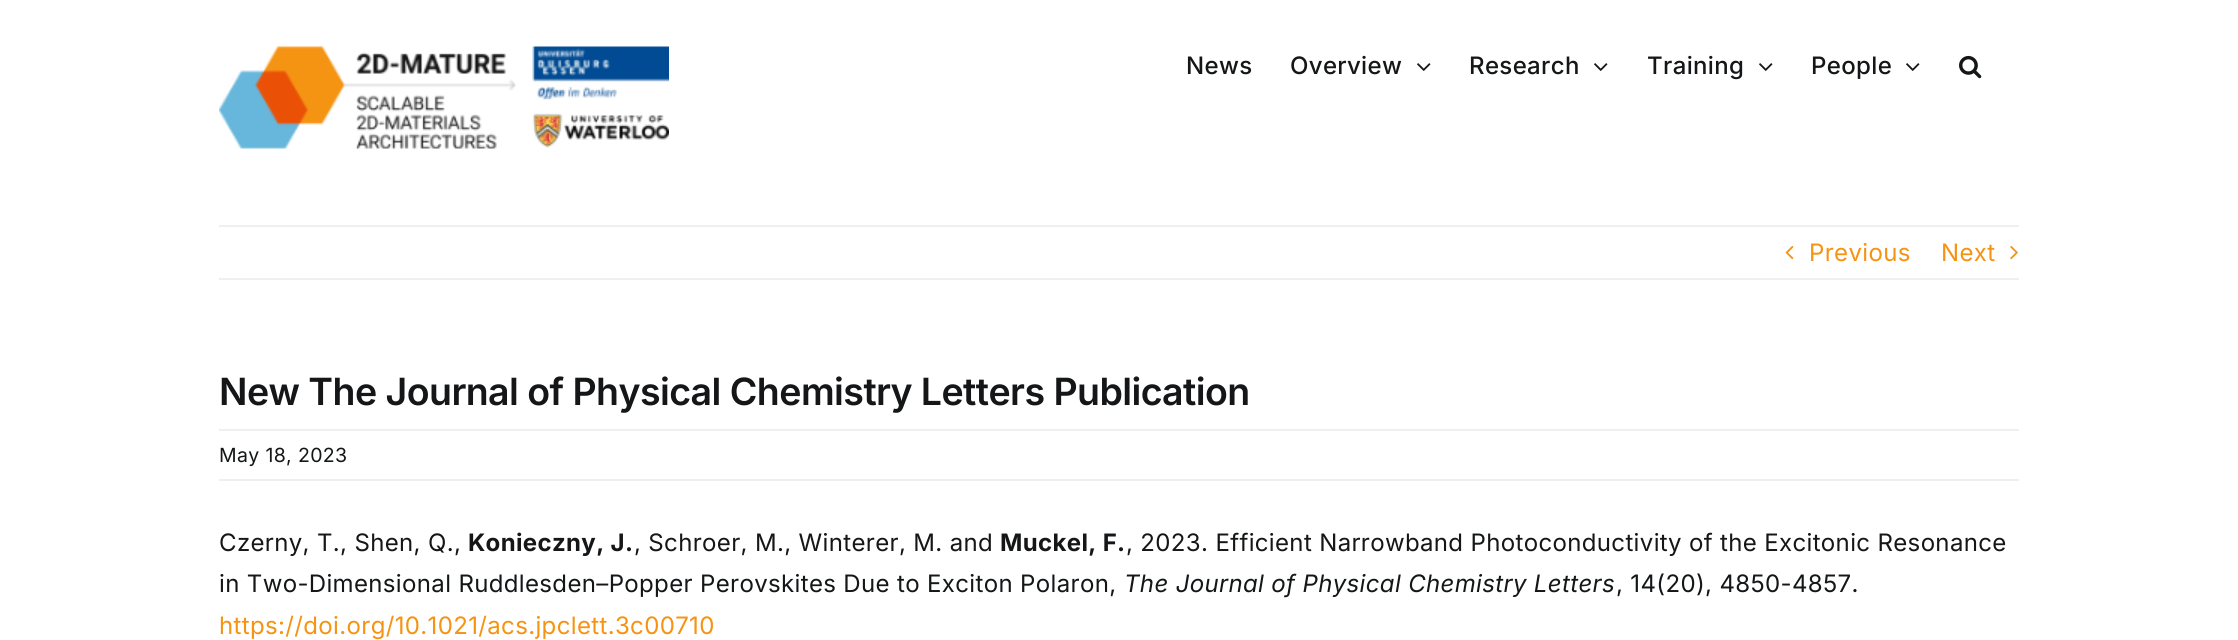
import math
import cairocffi as cairo

surface = cairo.ImageSurface(cairo.FORMAT_RGB24, 2238, 640)
ctx = cairo.Context(surface)
options = cairo.FontOptions()
options.set_hint_metrics(cairo.HINT_METRICS_OFF)
options.set_hint_style(cairo.HINT_STYLE_NONE)
ctx.set_font_options(options)
ctx.set_miter_limit(4)


def rgb(r, g, b):
    ctx.set_source_rgb(r / 255, g / 255, b / 255)


def face(family, size, italic, bold):
    ctx.select_font_face(family, cairo.FONT_SLANT_ITALIC if italic else cairo.FONT_SLANT_NORMAL, cairo.FONT_WEIGHT_BOLD if bold else cairo.FONT_WEIGHT_NORMAL)
    ctx.set_font_size(size)


def tracked(x, y, s, letter, word):
    ctx.move_to(x, y)
    for ch in s:
        ctx.show_text(ch)
        ctx.rel_move_to(letter + word * (ch == ' '), 0)


def rect(x, y, w, h):
    ctx.rectangle(x, y, w, h)
    ctx.fill()


def image(path, x, y, w, h):
    ctx.save()
    ctx.set_source_surface(cairo.ImageSurface.create_from_png(path), x, y)
    ctx.rectangle(x, y, w, h)
    ctx.fill()
    ctx.restore()


rgb(255, 255, 255)
ctx.paint()
image('image0.png', 219, 46, 450, 103)
face('Inter Medium', 24, 0, 0)
rgb(20, 22, 23)
tracked(1186, 74, 'News', 0.35, 0)
tracked(1290, 74, 'Overview', 0.35, 0)
image('image1.png', 1417, 63, 14, 8)
tracked(1469, 74, 'Research', 0.35, 0)
image('image1.png', 1594, 63, 14, 8)
tracked(1647, 74, 'Training', 0.35, 0)
image('image1.png', 1759, 63, 14, 8)
tracked(1811, 74, 'People', 0.35, 0)
image('image1.png', 1906, 63, 14, 8)
image('image2.png', 1959, 55, 23, 24)
rgb(239, 239, 239)
rect(219, 225, 1800, 2)
rect(219, 278, 1800, 2)
image('image3.png', 1785, 245, 9, 15)
face('Inter', 24, 0, 0)
rgb(245, 147, 18)
tracked(1809, 261, 'Previous', 0.35, 0)
tracked(1941, 261, 'Next', 0.35, 0)
image('image4.png', 2010, 245, 8, 15)
face('Inter SemiBold', 37.5, 0, 0)
rgb(20, 22, 23)
tracked(219, 405, 'New The Journal of Physical Chemistry Letters Publication', -0.55, 0)
rgb(239, 239, 239)
rect(219, 429, 1800, 2)
rect(219, 479, 1800, 2)
face('Inter', 19.5, 0, 0)
rgb(20, 22, 23)
tracked(219, 462, 'May 18, 2023', 0.35, 0)
face('Inter', 24, 0, 0)
tracked(219, 551, 'Czerny, T., Shen, Q.,', 0.35, 0)
face('Inter', 24, 0, 1)
tracked(468, 551, 'Konieczny, J.', 0.35, 0)
face('Inter', 24, 0, 0)
tracked(634, 551, ', Schroer, M., Winterer, M. and', 0.35, 0)
face('Inter', 24, 0, 1)
tracked(1000, 551, 'Muckel, F.', 0.35, 0)
face('Inter', 24, 0, 0)
tracked(1126, 551, ', 2023. Efficient Narrowband Photoconductivity of the Excitonic Resonance', 0.35, 0)
tracked(219, 592, 'in Two-Dimensional Ruddlesden–Popper Perovskites Due to Exciton Polaron,', 0.35, 0)
face('Inter', 24, 1, 0)
tracked(1124, 592, 'The Journal of Physical Chemistry Letters', 0.35, 0)
face('Inter', 24, 0, 0)
tracked(1616, 592, ', 14(20), 4850-4857.', 0.35, 0)
rgb(245, 147, 18)
tracked(219, 634, 'https://doi.org/10.1021/acs.jpclett.3c00710', 0.35, 0)
surface.write_to_png('render.png')
